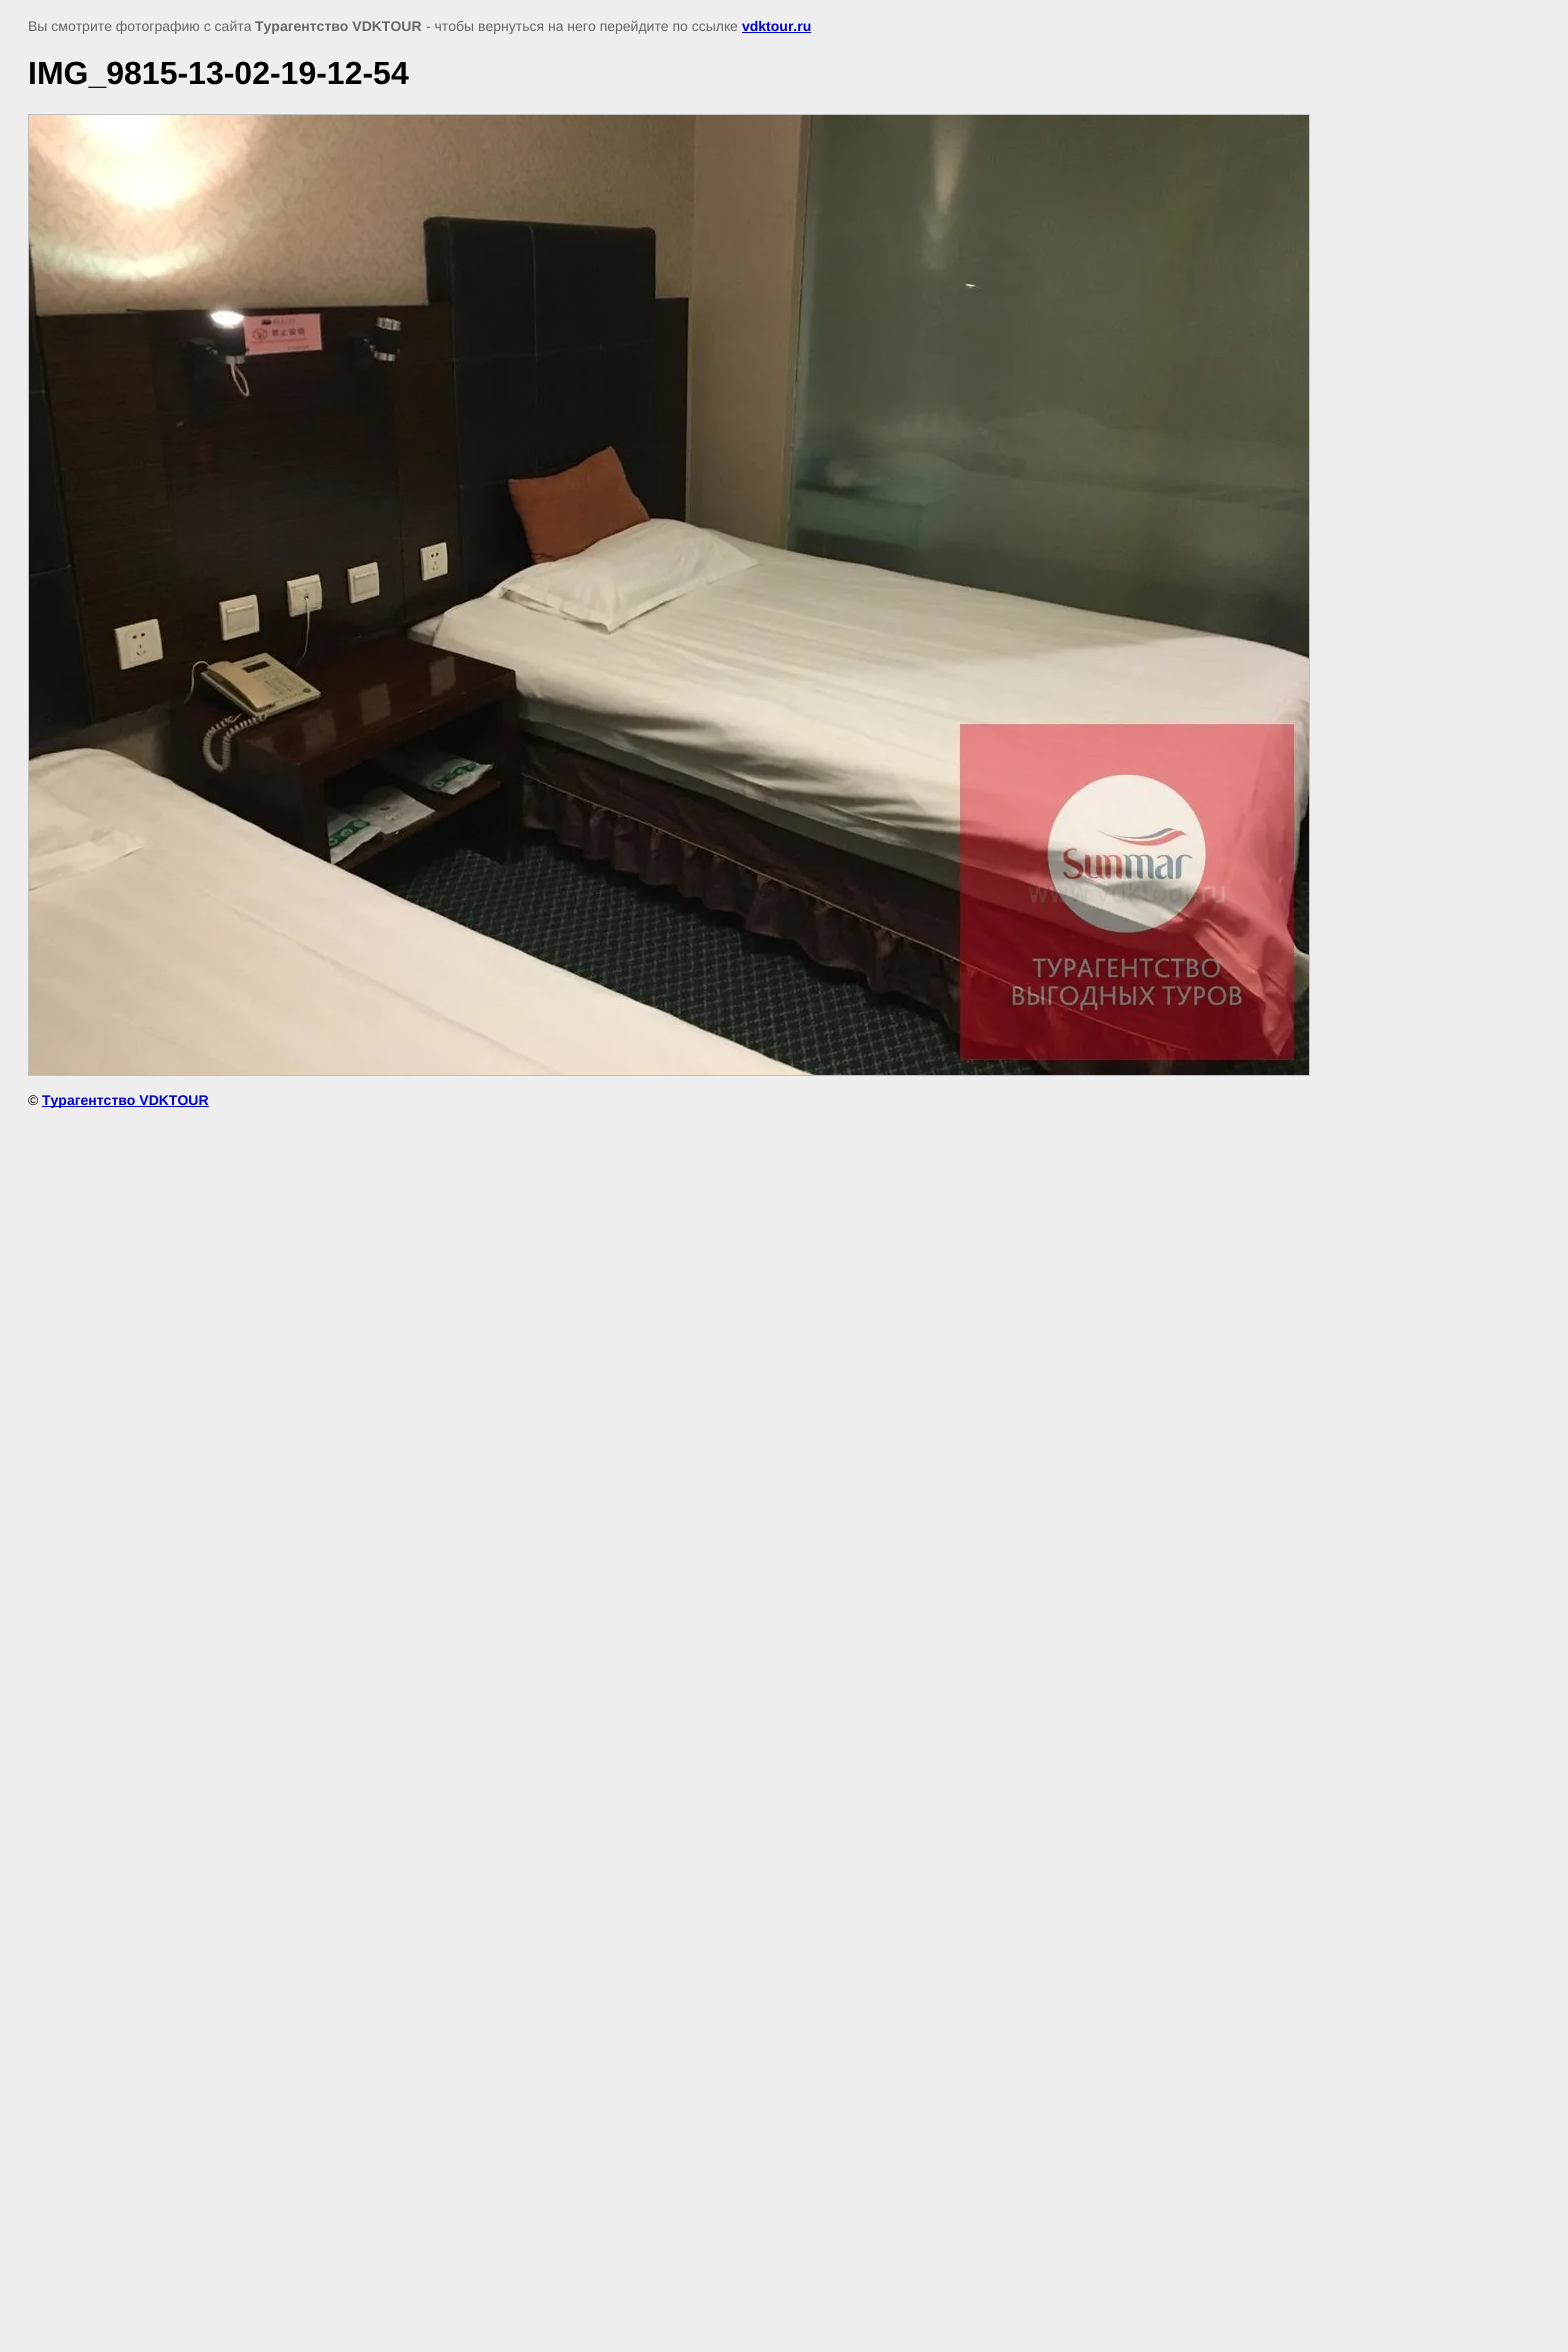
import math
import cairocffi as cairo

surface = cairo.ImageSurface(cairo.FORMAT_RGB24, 1568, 2352)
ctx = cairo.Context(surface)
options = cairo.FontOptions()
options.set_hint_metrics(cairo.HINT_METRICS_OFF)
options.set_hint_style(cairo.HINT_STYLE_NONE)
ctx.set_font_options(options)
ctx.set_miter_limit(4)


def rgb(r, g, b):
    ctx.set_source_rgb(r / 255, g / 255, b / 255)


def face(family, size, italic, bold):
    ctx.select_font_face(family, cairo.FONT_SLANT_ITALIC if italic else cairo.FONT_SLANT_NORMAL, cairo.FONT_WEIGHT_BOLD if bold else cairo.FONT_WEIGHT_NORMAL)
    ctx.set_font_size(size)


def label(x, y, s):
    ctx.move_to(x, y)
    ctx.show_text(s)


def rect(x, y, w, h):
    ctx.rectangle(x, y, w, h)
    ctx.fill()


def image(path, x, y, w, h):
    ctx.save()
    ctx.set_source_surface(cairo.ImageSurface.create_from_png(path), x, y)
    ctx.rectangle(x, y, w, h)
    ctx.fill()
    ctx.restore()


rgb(238, 238, 238)
ctx.paint()
face('Liberation Sans', 14, 0, 0)
rgb(102, 102, 102)
label(28, 31, 'Вы смотрите фотографию с сайта')
face('Liberation Sans', 14, 0, 1)
label(255, 31, 'Турагентство VDKTOUR')
face('Liberation Sans', 14, 0, 0)
label(426, 31, '- чтобы вернуться на него перейдите по ссылке')
face('Liberation Sans', 14, 0, 1)
rgb(0, 0, 204)
label(742, 31, 'vdktour.ru')
rect(742, 32, 69, 1)
face('Liberation Sans', 32, 0, 1)
rgb(0, 0, 0)
label(28, 84, 'IMG_9815-13-02-19-12-54')
ctx.rectangle(28.5, 114.5, 1281, 961)
rgb(192, 192, 192)
ctx.set_line_width(1)
ctx.stroke()
image('image0.png', 29, 115, 1280, 960)
face('Liberation Sans', 14, 0, 0)
rgb(0, 0, 0)
label(28, 1105, '©')
rgb(0, 0, 204)
rect(42, 1106, 167, 1)
face('Liberation Sans', 14, 0, 1)
label(42, 1105, 'Турагентство VDKTOUR')
surface.write_to_png('render.png')
